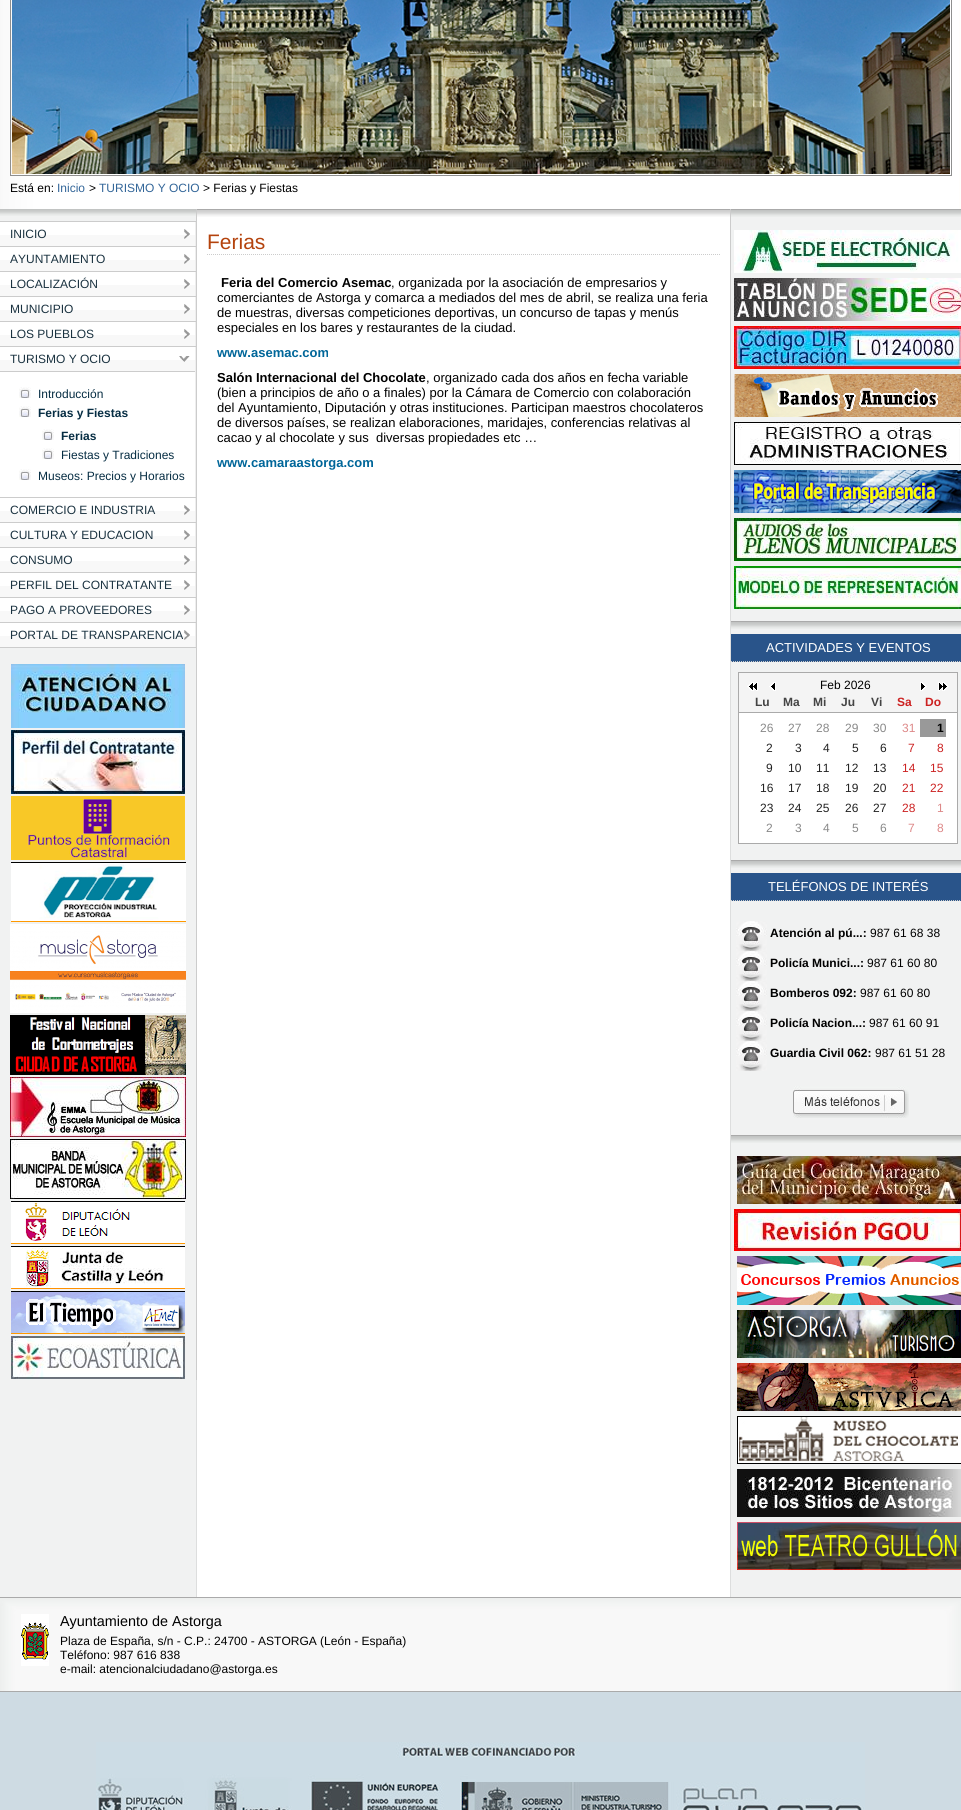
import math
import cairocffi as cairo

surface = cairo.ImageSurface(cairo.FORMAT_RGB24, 961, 1810)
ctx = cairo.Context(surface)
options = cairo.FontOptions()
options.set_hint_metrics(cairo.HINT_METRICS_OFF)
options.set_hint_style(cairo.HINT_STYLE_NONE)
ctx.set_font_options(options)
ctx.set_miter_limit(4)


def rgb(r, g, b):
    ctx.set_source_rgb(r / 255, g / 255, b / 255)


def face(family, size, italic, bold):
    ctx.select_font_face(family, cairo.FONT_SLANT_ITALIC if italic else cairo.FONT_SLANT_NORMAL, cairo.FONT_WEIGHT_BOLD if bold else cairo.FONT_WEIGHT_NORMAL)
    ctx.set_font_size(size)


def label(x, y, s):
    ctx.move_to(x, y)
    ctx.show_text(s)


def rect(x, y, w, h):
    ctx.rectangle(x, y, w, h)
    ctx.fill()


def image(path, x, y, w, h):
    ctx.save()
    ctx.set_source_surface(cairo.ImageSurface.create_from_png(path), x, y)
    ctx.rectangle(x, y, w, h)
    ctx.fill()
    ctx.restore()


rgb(206, 219, 227)
ctx.paint()
image('image0.png', 0, 0, 961, 209)
ctx.rectangle(10.5, -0.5, 941, 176)
rgb(143, 143, 143)
ctx.set_line_width(1)
ctx.stroke()
image('image1.png', 12, 0, 938, 174)
face('Liberation Sans', 12, 0, 0)
rgb(0, 0, 0)
label(10, 192, 'Está en:')
rgb(51, 102, 153)
label(57, 192, 'Inicio')
rgb(0, 0, 0)
label(89, 192, '>')
rgb(51, 102, 153)
label(99, 192, 'TURISMO Y OCIO')
rgb(0, 0, 0)
label(203, 192, '> Ferias y Fiestas')
image('image2.png', 0, 217, 961, 1380)
rgb(241, 242, 242)
rect(0, 216, 196, 1)
image('image3.png', 0, 209, 196, 7)
rgb(204, 204, 204)
rect(196, 209, 1, 1171)
rect(0, 221, 196, 1)
rect(0, 246, 196, 1)
rgb(255, 255, 255)
rect(0, 222, 195, 13)
rgb(248, 248, 248)
rect(0, 235, 195, 11)
rgb(238, 238, 238)
rect(195, 222, 1, 24)
image('image4.png', 184, 229, 6, 10)
rgb(26, 50, 64)
label(10, 238, 'INICIO')
rgb(204, 204, 204)
rect(0, 271, 196, 1)
rgb(255, 255, 255)
rect(0, 247, 195, 13)
rgb(248, 248, 248)
rect(0, 260, 195, 11)
rgb(238, 238, 238)
rect(195, 247, 1, 24)
image('image4.png', 184, 254, 6, 10)
rgb(26, 50, 64)
label(10, 263, 'AYUNTAMIENTO')
rgb(204, 204, 204)
rect(0, 296, 196, 1)
rgb(255, 255, 255)
rect(0, 272, 195, 13)
rgb(248, 248, 248)
rect(0, 285, 195, 11)
rgb(238, 238, 238)
rect(195, 272, 1, 24)
image('image4.png', 184, 279, 6, 10)
rgb(26, 50, 64)
label(10, 288, 'LOCALIZACIÓN')
rgb(204, 204, 204)
rect(0, 321, 196, 1)
rgb(255, 255, 255)
rect(0, 297, 195, 13)
rgb(248, 248, 248)
rect(0, 310, 195, 11)
rgb(238, 238, 238)
rect(195, 297, 1, 24)
image('image4.png', 184, 304, 6, 10)
rgb(26, 50, 64)
label(10, 313, 'MUNICIPIO')
rgb(204, 204, 204)
rect(0, 346, 196, 1)
rgb(255, 255, 255)
rect(0, 322, 195, 13)
rgb(248, 248, 248)
rect(0, 335, 195, 11)
rgb(238, 238, 238)
rect(195, 322, 1, 24)
image('image4.png', 184, 329, 6, 10)
rgb(26, 50, 64)
label(10, 338, 'LOS PUEBLOS')
rgb(204, 204, 204)
rect(0, 497, 196, 1)
rgb(255, 255, 255)
rect(0, 347, 195, 13)
rgb(248, 248, 248)
rect(0, 360, 195, 11)
rgb(238, 238, 238)
rect(195, 347, 1, 24)
image('image5.png', 179, 356, 11, 6)
rgb(26, 50, 64)
label(10, 363, 'TURISMO Y OCIO')
rgb(255, 255, 255)
rect(0, 372, 195, 125)
rgb(204, 204, 204)
rect(0, 371, 196, 1)
rgb(238, 238, 238)
rect(195, 371, 1, 126)
image('image6.png', 19, 387, 12, 11)
rgb(6, 45, 67)
label(38, 398, 'Introducción')
image('image6.png', 19, 406, 12, 11)
face('Liberation Sans', 12, 0, 1)
label(38, 417, 'Ferias y Fiestas')
image('image6.png', 42, 429, 12, 11)
label(61, 440, 'Ferias')
image('image6.png', 42, 448, 12, 11)
face('Liberation Sans', 12, 0, 0)
label(61, 459, 'Fiestas y Tradiciones')
image('image6.png', 19, 469, 12, 11)
label(38, 480, 'Museos: Precios y Horarios')
rgb(204, 204, 204)
rect(0, 522, 196, 1)
rgb(255, 255, 255)
rect(0, 498, 195, 13)
rgb(248, 248, 248)
rect(0, 511, 195, 11)
rgb(238, 238, 238)
rect(195, 498, 1, 24)
image('image4.png', 184, 505, 6, 10)
rgb(26, 50, 64)
label(10, 514, 'COMERCIO E INDUSTRIA')
rgb(204, 204, 204)
rect(0, 547, 196, 1)
rgb(255, 255, 255)
rect(0, 523, 195, 13)
rgb(248, 248, 248)
rect(0, 536, 195, 11)
rgb(238, 238, 238)
rect(195, 523, 1, 24)
image('image4.png', 184, 530, 6, 10)
rgb(26, 50, 64)
label(10, 539, 'CULTURA Y EDUCACION')
rgb(204, 204, 204)
rect(0, 572, 196, 1)
rgb(255, 255, 255)
rect(0, 548, 195, 13)
rgb(248, 248, 248)
rect(0, 561, 195, 11)
rgb(238, 238, 238)
rect(195, 548, 1, 24)
image('image4.png', 184, 555, 6, 10)
rgb(26, 50, 64)
label(10, 564, 'CONSUMO')
rgb(204, 204, 204)
rect(0, 597, 196, 1)
rgb(255, 255, 255)
rect(0, 573, 195, 13)
rgb(248, 248, 248)
rect(0, 586, 195, 11)
rgb(238, 238, 238)
rect(195, 573, 1, 24)
image('image4.png', 184, 580, 6, 10)
rgb(26, 50, 64)
label(10, 589, 'PERFIL DEL CONTRATANTE')
rgb(204, 204, 204)
rect(0, 622, 196, 1)
rgb(255, 255, 255)
rect(0, 598, 195, 13)
rgb(248, 248, 248)
rect(0, 611, 195, 11)
rgb(238, 238, 238)
rect(195, 598, 1, 24)
image('image4.png', 184, 605, 6, 10)
rgb(26, 50, 64)
label(10, 614, 'PAGO A PROVEEDORES')
rgb(204, 204, 204)
rect(0, 647, 196, 1)
rgb(255, 255, 255)
rect(0, 623, 195, 13)
rgb(248, 248, 248)
rect(0, 636, 195, 11)
rgb(238, 238, 238)
rect(195, 623, 1, 24)
image('image4.png', 184, 630, 6, 10)
rgb(26, 50, 64)
label(10, 639, 'PORTAL DE TRANSPARENCIA')
image('image7.png', 11, 664, 174, 64)
image('image8.png', 11, 730, 174, 64)
image('image9.png', 11, 796, 174, 64)
image('image10.png', 11, 862, 175, 60)
image('image11.png', 10, 924, 176, 89)
image('image12.png', 10, 1015, 176, 60)
image('image13.png', 10, 1077, 176, 60)
image('image14.png', 10, 1139, 176, 60)
image('image15.png', 11, 1201, 174, 43)
image('image16.png', 11, 1246, 174, 43)
image('image17.png', 11, 1291, 174, 43)
image('image18.png', 11, 1336, 174, 43)
image('image19.png', 197, 210, 533, 7)
rgb(170, 170, 170)
rect(197, 209, 764, 1)
rgb(204, 204, 204)
rect(730, 209, 1, 271)
ctx.new_path()
ctx.move_to(207, 254.5)
ctx.line_to(720, 254.5)
ctx.set_dash([1, 1])
ctx.stroke()
face('Liberation Sans', 21, 0, 0)
rgb(180, 67, 13)
label(207, 249, 'Ferias')
face('Liberation Sans', 13, 0, 1)
rgb(0, 0, 0)
label(221, 287, 'Feria del Comercio Asemac')
face('Liberation Sans', 13, 0, 0)
label(391, 287, ', organizada por la asociación de empresarios y')
label(217, 302, 'comerciantes de Astorga y comarca a mediados del mes de abril, se realiza una feria')
label(217, 317, 'de muestras, diversas competiciones deportivas, un concurso de tapas y menús')
label(217, 332, 'especiales en los bares y restaurantes de la ciudad.')
face('Liberation Sans', 13, 0, 1)
rgb(0, 102, 153)
label(217, 357, 'www.asemac.com')
rgb(0, 0, 0)
label(217, 382, 'Salón Internacional del Chocolate')
face('Liberation Sans', 13, 0, 0)
label(426, 382, ', organizado cada dos años en fecha variable')
label(217, 397, '(bien a principios de año o a finales) por la Cámara de Comercio con colaboración')
label(217, 412, 'del Ayuntamiento, Diputación y otras instituciones. Participan maestros chocolateros')
label(217, 427, 'de diversos países, se realizan elaboraciones, maridajes, conferencias relativas al')
label(217, 442, 'cacao y al chocolate y sus')
label(376, 442, 'diversas propiedades etc …')
face('Liberation Sans', 13, 0, 1)
rgb(0, 102, 153)
label(217, 467, 'www.camaraastorga.com')
image('image20.png', 731, 210, 230, 7)
image('image21.png', 734, 230, 227, 43)
image('image22.png', 734, 278, 227, 43)
image('image23.png', 734, 326, 227, 43)
image('image24.png', 734, 374, 227, 43)
image('image25.png', 734, 422, 227, 43)
image('image26.png', 734, 470, 227, 43)
image('image27.png', 734, 518, 227, 43)
image('image28.png', 734, 566, 227, 43)
image('image20.png', 731, 622, 230, 7)
rgb(170, 170, 170)
rect(731, 621, 230, 1)
rgb(41, 84, 138)
rect(731, 634, 230, 28)
ctx.new_path()
ctx.move_to(731, 661.5)
ctx.line_to(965, 661.5)
rgb(204, 204, 204)
ctx.stroke()
face('Liberation Sans', 13, 0, 0)
rgb(255, 255, 255)
label(766, 652, 'ACTIVIDADES Y EVENTOS')
rect(739, 713, 218, 130)
ctx.rectangle(738.5, 672.5, 219, 171)
rgb(170, 170, 170)
ctx.set_dash([])
ctx.stroke()
rgb(244, 244, 244)
rect(739, 673, 218, 39)
rgb(170, 170, 170)
rect(739, 712, 218, 1)
image('image29.png', 747, 682, 11, 9)
image('image30.png', 769, 682, 7, 9)
face('Liberation Sans', 12, 0, 0)
rgb(0, 0, 0)
label(820, 689, 'Feb 2026')
image('image31.png', 920, 682, 7, 9)
image('image32.png', 938, 682, 11, 9)
face('Liberation Sans', 12, 0, 1)
rgb(68, 68, 68)
label(755, 706, 'Lu')
label(783, 706, 'Ma')
label(813, 706, 'Mi')
label(841, 706, 'Ju')
label(871, 706, 'Vi')
rgb(204, 34, 34)
label(897, 706, 'Sa')
label(925, 706, 'Do')
face('Liberation Sans', 12, 0, 0)
rgb(136, 136, 136)
label(760, 732, '26')
label(788, 732, '27')
label(816, 732, '28')
label(845, 732, '29')
label(873, 732, '30')
rgb(221, 136, 136)
label(902, 732, '31')
rgb(153, 153, 153)
rect(920, 719, 26, 18)
face('Liberation Sans', 12, 0, 1)
rgb(0, 0, 0)
label(937, 732, '1')
face('Liberation Sans', 12, 0, 0)
rgb(34, 34, 34)
label(766, 752, '2')
label(795, 752, '3')
label(823, 752, '4')
label(852, 752, '5')
label(880, 752, '6')
rgb(204, 34, 34)
label(908, 752, '7')
label(937, 752, '8')
rgb(34, 34, 34)
label(766, 772, '9')
label(788, 772, '10')
label(816, 772, '11')
label(845, 772, '12')
label(873, 772, '13')
rgb(204, 34, 34)
label(902, 772, '14')
label(930, 772, '15')
rgb(34, 34, 34)
label(760, 792, '16')
label(788, 792, '17')
label(816, 792, '18')
label(845, 792, '19')
label(873, 792, '20')
rgb(204, 34, 34)
label(902, 792, '21')
label(930, 792, '22')
rgb(34, 34, 34)
label(760, 812, '23')
label(788, 812, '24')
label(816, 812, '25')
label(845, 812, '26')
label(873, 812, '27')
rgb(204, 34, 34)
label(902, 812, '28')
rgb(221, 136, 136)
label(937, 812, '1')
rgb(136, 136, 136)
label(766, 832, '2')
label(795, 832, '3')
label(823, 832, '4')
label(852, 832, '5')
label(880, 832, '6')
rgb(221, 136, 136)
label(908, 832, '7')
label(937, 832, '8')
image('image20.png', 731, 861, 230, 7)
rgb(170, 170, 170)
rect(731, 860, 230, 1)
rgb(41, 84, 138)
rect(731, 873, 230, 28)
ctx.new_path()
ctx.move_to(731, 900.5)
ctx.line_to(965, 900.5)
rgb(204, 204, 204)
ctx.set_dash([1, 1])
ctx.stroke()
face('Liberation Sans', 13, 0, 0)
rgb(255, 255, 255)
label(768, 891, 'TELÉFONOS DE INTERÉS')
image('image33.png', 736, 921, 31, 30)
face('Liberation Sans', 12, 0, 1)
rgb(0, 0, 0)
label(770, 937, 'Atención al pú...:')
face('Liberation Sans', 12, 0, 0)
label(870, 937, '987 61 68 38')
image('image33.png', 736, 951, 31, 30)
face('Liberation Sans', 12, 0, 1)
label(770, 967, 'Policía Munici...:')
face('Liberation Sans', 12, 0, 0)
label(867, 967, '987 61 60 80')
image('image33.png', 736, 981, 31, 30)
face('Liberation Sans', 12, 0, 1)
label(770, 997, 'Bomberos 092:')
face('Liberation Sans', 12, 0, 0)
label(860, 997, '987 61 60 80')
image('image33.png', 736, 1011, 31, 30)
face('Liberation Sans', 12, 0, 1)
label(770, 1027, 'Policía Nacion...:')
face('Liberation Sans', 12, 0, 0)
label(869, 1027, '987 61 60 91')
image('image33.png', 736, 1041, 31, 30)
face('Liberation Sans', 12, 0, 1)
label(770, 1057, 'Guardia Civil 062:')
face('Liberation Sans', 12, 0, 0)
label(875, 1057, '987 61 51 28')
image('image34.png', 793, 1086, 116, 32)
image('image20.png', 731, 1136, 230, 7)
rgb(170, 170, 170)
rect(731, 1135, 230, 1)
image('image35.png', 737, 1156, 224, 48)
image('image36.png', 734, 1209, 227, 42)
image('image37.png', 737, 1256, 224, 49)
image('image38.png', 737, 1310, 224, 48)
image('image39.png', 737, 1363, 224, 48)
image('image40.png', 737, 1416, 224, 48)
image('image41.png', 737, 1469, 224, 48)
image('image42.png', 737, 1522, 224, 48)
image('image43.png', 0, 1598, 961, 93)
rect(0, 1597, 961, 1)
rect(0, 1691, 961, 1)
image('image44.png', 21, 1614, 28, 52)
face('Liberation Sans', 14.4, 0, 0)
rgb(0, 0, 0)
label(60, 1626, 'Ayuntamiento de Astorga')
face('Liberation Sans', 12, 0, 0)
label(60, 1645, 'Plaza de España, s/n - C.P.: 24700 - ASTORGA (León - España)')
label(60, 1659, 'Teléfono: 987 616 838')
label(60, 1673, 'e-mail: atencionalciudadano@astorga.es')
image('image45.png', 96, 1742, 769, 68)
surface.write_to_png('render.png')
